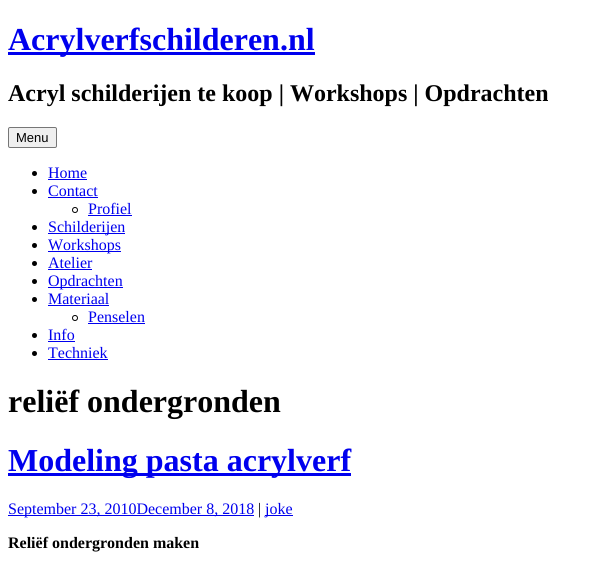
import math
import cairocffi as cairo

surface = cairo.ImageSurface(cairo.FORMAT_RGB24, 607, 571)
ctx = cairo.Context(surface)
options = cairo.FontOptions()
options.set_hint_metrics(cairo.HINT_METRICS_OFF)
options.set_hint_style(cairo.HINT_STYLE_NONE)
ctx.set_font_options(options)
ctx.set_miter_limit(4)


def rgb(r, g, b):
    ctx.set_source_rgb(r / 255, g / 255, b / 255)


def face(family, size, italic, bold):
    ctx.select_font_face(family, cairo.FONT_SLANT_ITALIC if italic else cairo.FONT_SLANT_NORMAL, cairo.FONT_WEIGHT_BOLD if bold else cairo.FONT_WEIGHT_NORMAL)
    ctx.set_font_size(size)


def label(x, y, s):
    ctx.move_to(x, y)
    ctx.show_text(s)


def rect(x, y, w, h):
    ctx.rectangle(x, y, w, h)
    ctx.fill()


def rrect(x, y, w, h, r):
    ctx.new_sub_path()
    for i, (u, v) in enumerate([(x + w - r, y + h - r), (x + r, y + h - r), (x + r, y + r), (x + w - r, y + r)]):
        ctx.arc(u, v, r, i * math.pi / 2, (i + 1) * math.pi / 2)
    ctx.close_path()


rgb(255, 255, 255)
ctx.paint()
rgb(0, 0, 238)
rect(8, 52, 307, 3)
face('Liberation Serif', 32, 0, 1)
label(8, 50, 'Acrylverfschilderen.nl')
face('Liberation Serif', 24, 0, 1)
rgb(0, 0, 0)
label(8, 101, 'Acryl schilderijen te koop | Workshops | Opdrachten')
rgb(239, 239, 239)
rrect(8.5, 127.5, 48, 20, 1.5)
ctx.fill_preserve()
rgb(118, 118, 118)
ctx.set_line_width(1)
ctx.stroke()
face('Liberation Sans', 13, 0, 0)
rgb(0, 0, 0)
label(16, 142, 'Menu')
ctx.new_path()
ctx.arc(34.5, 173.5, 2.5, 0, 2 * math.pi)
ctx.fill()
face('Liberation Serif', 16, 0, 0)
rgb(0, 0, 238)
label(48, 178, 'Home')
rect(48, 179, 39, 1)
rgb(0, 0, 0)
ctx.new_path()
ctx.arc(34.5, 191.5, 2.5, 0, 2 * math.pi)
ctx.fill()
rgb(0, 0, 238)
label(48, 196, 'Contact')
rect(48, 197, 50, 1)
ctx.new_path()
ctx.arc(75, 210, 2.5, 0, 2 * math.pi)
rgb(0, 0, 0)
ctx.stroke()
rgb(0, 0, 238)
label(88, 214, 'Profiel')
rect(88, 215, 44, 1)
rgb(0, 0, 0)
ctx.new_path()
ctx.arc(34.5, 227.5, 2.5, 0, 2 * math.pi)
ctx.fill()
rgb(0, 0, 238)
rect(48, 233, 77, 1)
label(48, 232, 'Schilderijen')
rgb(0, 0, 0)
ctx.new_path()
ctx.arc(34.5, 245.5, 2.5, 0, 2 * math.pi)
ctx.fill()
rgb(0, 0, 238)
rect(48, 251, 73, 1)
label(48, 250, 'Workshops')
rgb(0, 0, 0)
ctx.new_path()
ctx.arc(34.5, 263.5, 2.5, 0, 2 * math.pi)
ctx.fill()
rgb(0, 0, 238)
label(48, 268, 'Atelier')
rect(48, 269, 44, 1)
rgb(0, 0, 0)
ctx.new_path()
ctx.arc(34.5, 281.5, 2.5, 0, 2 * math.pi)
ctx.fill()
rgb(0, 0, 238)
rect(48, 287, 75, 1)
label(48, 286, 'Opdrachten')
rgb(0, 0, 0)
ctx.new_path()
ctx.arc(34.5, 299.5, 2.5, 0, 2 * math.pi)
ctx.fill()
rgb(0, 0, 238)
label(48, 304, 'Materiaal')
rect(48, 305, 61, 1)
ctx.new_path()
ctx.arc(75, 318, 2.5, 0, 2 * math.pi)
rgb(0, 0, 0)
ctx.stroke()
rgb(0, 0, 238)
label(88, 322, 'Penselen')
rect(88, 323, 57, 1)
rgb(0, 0, 0)
ctx.new_path()
ctx.arc(34.5, 335.5, 2.5, 0, 2 * math.pi)
ctx.fill()
rgb(0, 0, 238)
label(48, 340, 'Info')
rect(48, 341, 27, 1)
rgb(0, 0, 0)
ctx.new_path()
ctx.arc(34.5, 353.5, 2.5, 0, 2 * math.pi)
ctx.fill()
rgb(0, 0, 238)
label(48, 358, 'Techniek')
rect(48, 359, 60, 1)
face('Liberation Serif', 32, 0, 1)
rgb(0, 0, 0)
label(8, 412, 'reliëf ondergronden')
rgb(0, 0, 238)
rect(8, 473, 343, 3)
label(8, 471, 'Modeling pasta acrylverf')
rect(8, 515, 246, 1)
face('Liberation Serif', 16, 0, 0)
label(8, 514, 'September 23, 2010December 8, 2018')
rgb(0, 0, 0)
label(258, 514, '|')
rgb(0, 0, 238)
rect(265, 515, 28, 1)
label(265, 514, 'joke')
face('Liberation Serif', 16, 0, 1)
rgb(0, 0, 0)
label(8, 548, 'Reliëf ondergronden maken')
surface.write_to_png('render.png')
